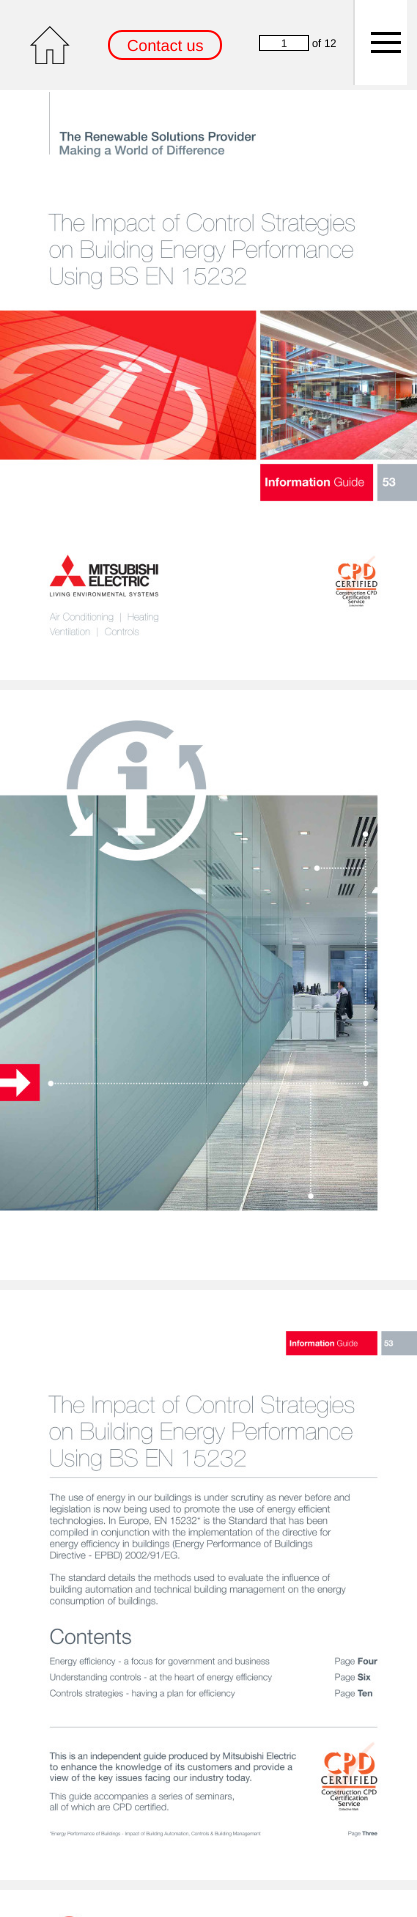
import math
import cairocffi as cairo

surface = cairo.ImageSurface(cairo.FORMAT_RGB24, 417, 1917)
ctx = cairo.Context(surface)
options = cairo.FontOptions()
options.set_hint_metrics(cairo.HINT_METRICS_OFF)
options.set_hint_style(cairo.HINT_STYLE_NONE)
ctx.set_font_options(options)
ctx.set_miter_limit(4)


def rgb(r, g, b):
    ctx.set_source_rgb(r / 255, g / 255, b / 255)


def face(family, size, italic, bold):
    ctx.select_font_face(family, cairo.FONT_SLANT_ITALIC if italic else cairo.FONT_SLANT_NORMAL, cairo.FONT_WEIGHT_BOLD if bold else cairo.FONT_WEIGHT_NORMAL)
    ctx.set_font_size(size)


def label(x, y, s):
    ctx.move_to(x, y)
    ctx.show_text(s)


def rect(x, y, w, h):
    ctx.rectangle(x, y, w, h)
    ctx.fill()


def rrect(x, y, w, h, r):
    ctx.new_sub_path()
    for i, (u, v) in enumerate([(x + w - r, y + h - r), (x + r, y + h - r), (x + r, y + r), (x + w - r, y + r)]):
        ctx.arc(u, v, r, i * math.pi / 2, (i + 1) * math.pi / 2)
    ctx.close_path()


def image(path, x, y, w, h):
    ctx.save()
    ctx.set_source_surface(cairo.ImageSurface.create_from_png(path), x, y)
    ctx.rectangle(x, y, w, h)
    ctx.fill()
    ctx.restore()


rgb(242, 242, 242)
ctx.paint()
rgb(255, 255, 255)
rect(0, 90, 417, 2)
image('image0.png', 30, 26, 40, 38)
rrect(109, 31, 112, 28, 13)
rgb(255, 1, 0)
ctx.stroke()
face('Liberation Sans', 16, 0, 0)
label(127, 51, 'Contact us')
rgb(255, 255, 255)
ctx.rectangle(259.5, 35.5, 49, 15)
ctx.fill_preserve()
rgb(0, 0, 0)
ctx.set_line_width(1)
ctx.stroke()
face('Liberation Sans', 11, 0, 0)
rgb(34, 34, 34)
label(281, 47, '1')
rgb(0, 0, 0)
label(312, 47, 'of 12')
rgb(255, 255, 255)
rect(355, 0, 52, 85)
rgb(224, 224, 224)
rect(353, 0, 2, 85)
rgb(0, 0, 0)
rect(371, 32, 30, 3)
rect(371, 41, 30, 3)
rect(371, 50, 30, 3)
rgb(255, 255, 255)
rect(0, 637, 417, 43)
image('image1.png', 0, 92, 417, 545)
rect(0, 690, 417, 590)
image('image2.png', 0, 720, 381, 492)
rect(0, 1290, 417, 590)
image('image3.png', 47, 1331, 370, 510)
rect(0, 1890, 417, 27)
image('image4.png', 59, 1913, 23, 4)
surface.write_to_png('render.png')
